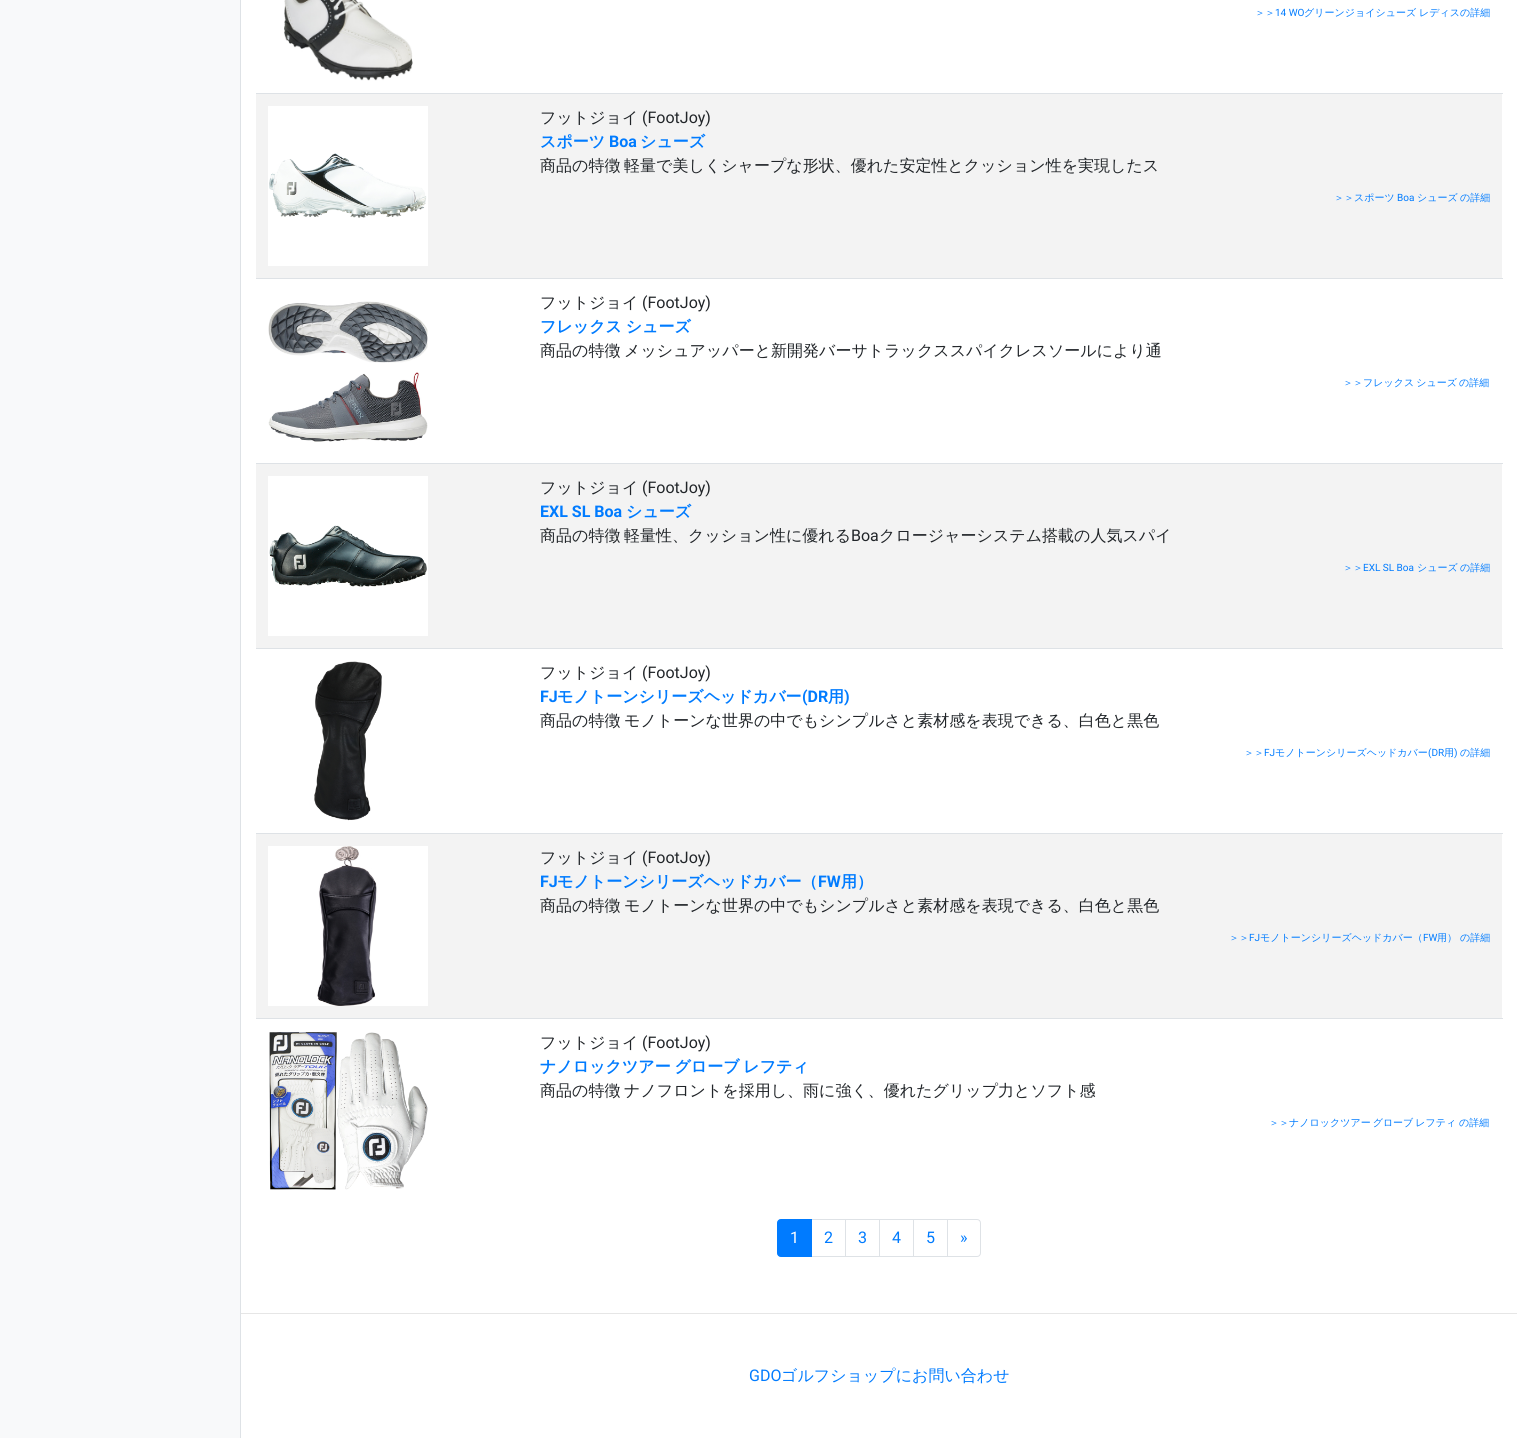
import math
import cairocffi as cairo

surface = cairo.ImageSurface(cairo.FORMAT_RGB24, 1517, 1438)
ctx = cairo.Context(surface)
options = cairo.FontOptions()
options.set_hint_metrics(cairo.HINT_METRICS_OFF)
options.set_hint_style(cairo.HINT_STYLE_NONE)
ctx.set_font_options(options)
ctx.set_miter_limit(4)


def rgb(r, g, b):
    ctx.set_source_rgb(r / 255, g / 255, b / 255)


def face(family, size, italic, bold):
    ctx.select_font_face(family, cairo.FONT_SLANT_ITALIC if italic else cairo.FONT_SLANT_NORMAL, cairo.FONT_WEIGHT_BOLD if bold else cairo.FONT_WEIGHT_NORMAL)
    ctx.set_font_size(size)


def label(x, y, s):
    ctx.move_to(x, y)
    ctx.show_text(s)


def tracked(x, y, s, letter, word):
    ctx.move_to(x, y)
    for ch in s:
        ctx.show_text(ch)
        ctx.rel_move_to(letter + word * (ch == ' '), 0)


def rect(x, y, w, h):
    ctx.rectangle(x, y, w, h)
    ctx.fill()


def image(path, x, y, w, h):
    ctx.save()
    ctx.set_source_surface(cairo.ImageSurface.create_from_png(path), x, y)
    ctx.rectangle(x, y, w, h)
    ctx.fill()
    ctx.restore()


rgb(255, 255, 255)
ctx.paint()
rgb(248, 249, 250)
rect(0, 0, 240, 1438)
rgb(222, 226, 230)
rect(240, 0, 1, 1438)
image('image0.png', 284, 0, 129, 81)
face('WenQuanYi Zen Hei Medium', 10, 0, 0)
rgb(0, 123, 255)
label(1255, 16, '＞＞')
face('Roboto', 10, 0, 0)
label(1275, 16, '14 WO')
face('WenQuanYi Zen Hei Medium', 10, 0, 0)
label(1304, 16, 'グリーンジョイシューズ')
label(1419, 16, 'レディスの詳細')
rgb(243, 243, 243)
rect(256, 94, 1246, 184)
image('image1.png', 268, 106, 160, 160)
rgb(222, 226, 230)
rect(256, 93, 1247, 1)
face('WenQuanYi Zen Hei Medium', 16, 0, 0)
rgb(33, 37, 41)
label(540, 123, 'フットジョイ')
face('Roboto', 16, 0, 0)
label(642, 123, '(FootJoy)')
face('WenQuanYi Zen Hei', 16, 0, 1)
rgb(0, 123, 255)
label(540, 147, 'スポーツ')
face('Roboto', 16, 0, 1)
label(609, 147, 'Boa')
face('WenQuanYi Zen Hei', 16, 0, 1)
label(640, 147, 'シューズ')
face('WenQuanYi Zen Hei Medium', 16, 0, 0)
rgb(33, 37, 41)
label(540, 171, '商品の特徴')
label(624, 171, '軽量で美しくシャープな形状、優れた安定性とクッション性を実現したス')
face('WenQuanYi Zen Hei Medium', 10, 0, 0)
rgb(0, 123, 255)
label(1334, 201, '＞＞スポーツ')
face('Roboto', 10, 0, 0)
label(1397, 201, 'Boa')
face('WenQuanYi Zen Hei Medium', 10, 0, 0)
label(1417, 201, 'シューズ')
label(1460, 201, 'の詳細')
image('image2.png', 268, 301, 160, 141)
rgb(222, 226, 230)
rect(256, 278, 1247, 1)
face('WenQuanYi Zen Hei Medium', 16, 0, 0)
rgb(33, 37, 41)
label(540, 308, 'フットジョイ')
face('Roboto', 16, 0, 0)
label(642, 308, '(FootJoy)')
face('WenQuanYi Zen Hei', 16, 0, 1)
rgb(0, 123, 255)
tracked(540, 332, 'フレックス シューズ', 0, -1)
face('WenQuanYi Zen Hei Medium', 16, 0, 0)
rgb(33, 37, 41)
label(540, 356, '商品の特徴')
label(624, 356, 'メッシュアッパーと新開発バーサトラックススパイクレスソールにより通')
face('WenQuanYi Zen Hei Medium', 10, 0, 0)
rgb(0, 123, 255)
tracked(1343, 386, '＞＞フレックス シューズ', 0, -1)
label(1459, 386, 'の詳細')
rgb(243, 243, 243)
rect(256, 464, 1246, 184)
image('image3.png', 268, 476, 160, 160)
rgb(222, 226, 230)
rect(256, 463, 1247, 1)
face('WenQuanYi Zen Hei Medium', 16, 0, 0)
rgb(33, 37, 41)
label(540, 493, 'フットジョイ')
face('Roboto', 16, 0, 0)
label(642, 493, '(FootJoy)')
face('Roboto', 16, 0, 1)
rgb(0, 123, 255)
label(540, 517, 'EXL SL Boa')
face('WenQuanYi Zen Hei', 16, 0, 1)
label(626, 517, 'シューズ')
face('WenQuanYi Zen Hei Medium', 16, 0, 0)
rgb(33, 37, 41)
label(540, 541, '商品の特徴')
label(624, 541, '軽量性、クッション性に優れる')
face('Roboto', 16, 0, 0)
label(851, 541, 'Boa')
face('WenQuanYi Zen Hei Medium', 16, 0, 0)
label(879, 541, 'クロージャーシステム搭載の人気スパイ')
face('WenQuanYi Zen Hei Medium', 10, 0, 0)
rgb(0, 123, 255)
label(1343, 571, '＞＞')
face('Roboto', 10, 0, 0)
label(1363, 571, 'EXL SL Boa')
face('WenQuanYi Zen Hei Medium', 10, 0, 0)
label(1417, 571, 'シューズ')
label(1460, 571, 'の詳細')
image('image4.png', 314, 661, 68, 160)
rgb(222, 226, 230)
rect(256, 648, 1247, 1)
face('WenQuanYi Zen Hei Medium', 16, 0, 0)
rgb(33, 37, 41)
label(540, 678, 'フットジョイ')
face('Roboto', 16, 0, 0)
label(642, 678, '(FootJoy)')
face('Roboto', 16, 0, 1)
rgb(0, 123, 255)
label(540, 702, 'FJ')
face('WenQuanYi Zen Hei', 16, 0, 1)
label(557, 702, 'モノトーンシリーズヘッドカバー')
face('Roboto', 16, 0, 1)
label(802, 702, '(DR')
face('WenQuanYi Zen Hei', 16, 0, 1)
label(828, 702, '用')
face('Roboto', 16, 0, 1)
label(844, 702, ')')
face('WenQuanYi Zen Hei Medium', 16, 0, 0)
rgb(33, 37, 41)
label(540, 726, '商品の特徴')
label(624, 726, 'モノトーンな世界の中でもシンプルさと素材感を表現できる、白色と黒色')
face('WenQuanYi Zen Hei Medium', 10, 0, 0)
rgb(0, 123, 255)
label(1244, 756, '＞＞')
face('Roboto', 10, 0, 0)
label(1264, 756, 'FJ')
face('WenQuanYi Zen Hei Medium', 10, 0, 0)
label(1275, 756, 'モノトーンシリーズヘッドカバー')
face('Roboto', 10, 0, 0)
label(1428, 756, '(DR')
face('WenQuanYi Zen Hei Medium', 10, 0, 0)
label(1444, 756, '用')
face('Roboto', 10, 0, 0)
label(1454, 756, ')')
face('WenQuanYi Zen Hei Medium', 10, 0, 0)
label(1460, 756, 'の詳細')
rgb(243, 243, 243)
rect(256, 834, 1246, 184)
image('image5.png', 268, 846, 160, 160)
rgb(222, 226, 230)
rect(256, 833, 1247, 1)
face('WenQuanYi Zen Hei Medium', 16, 0, 0)
rgb(33, 37, 41)
label(540, 863, 'フットジョイ')
face('Roboto', 16, 0, 0)
label(642, 863, '(FootJoy)')
face('Roboto', 16, 0, 1)
rgb(0, 123, 255)
label(540, 887, 'FJ')
face('WenQuanYi Zen Hei', 16, 0, 1)
label(557, 887, 'モノトーンシリーズヘッドカバー（')
face('Roboto', 16, 0, 1)
label(818, 887, 'FW')
face('WenQuanYi Zen Hei', 16, 0, 1)
label(841, 887, '用）')
face('WenQuanYi Zen Hei Medium', 16, 0, 0)
rgb(33, 37, 41)
label(540, 911, '商品の特徴')
label(624, 911, 'モノトーンな世界の中でもシンプルさと素材感を表現できる、白色と黒色')
face('WenQuanYi Zen Hei Medium', 10, 0, 0)
rgb(0, 123, 255)
label(1229, 941, '＞＞')
face('Roboto', 10, 0, 0)
label(1249, 941, 'FJ')
face('WenQuanYi Zen Hei Medium', 10, 0, 0)
label(1260, 941, 'モノトーンシリーズヘッドカバー（')
face('Roboto', 10, 0, 0)
label(1423, 941, 'FW')
face('WenQuanYi Zen Hei Medium', 10, 0, 0)
label(1437, 941, '用）')
label(1460, 941, 'の詳細')
image('image6.png', 269, 1032, 159, 158)
rgb(222, 226, 230)
rect(256, 1018, 1247, 1)
face('WenQuanYi Zen Hei Medium', 16, 0, 0)
rgb(33, 37, 41)
label(540, 1048, 'フットジョイ')
face('Roboto', 16, 0, 0)
label(642, 1048, '(FootJoy)')
face('WenQuanYi Zen Hei', 16, 0, 1)
rgb(0, 123, 255)
tracked(540, 1072, 'ナノロックツアー グローブ レフティ', 0, -1)
face('WenQuanYi Zen Hei Medium', 16, 0, 0)
rgb(33, 37, 41)
label(540, 1096, '商品の特徴')
label(624, 1096, 'ナノフロントを採用し、雨に強く、優れたグリップ力とソフト感')
face('WenQuanYi Zen Hei Medium', 10, 0, 0)
rgb(0, 123, 255)
tracked(1269, 1126, '＞＞ナノロックツアー グローブ レフティ', 0, -1)
label(1459, 1126, 'の詳細')
ctx.rectangle(811.5, 1219.5, 34, 37)
rgb(222, 226, 230)
ctx.set_line_width(1)
ctx.stroke()
rgb(0, 123, 255)
ctx.new_path()
ctx.move_to(781, 1219.5)
ctx.line_to(811.5, 1219.5)
ctx.line_to(811.5, 1256.5)
ctx.line_to(781, 1256.5)
ctx.curve_to(779, 1256.5, 777.5, 1255, 777.5, 1253)
ctx.line_to(777.5, 1223)
ctx.curve_to(777.5, 1221, 779, 1219.5, 781, 1219.5)
ctx.close_path()
ctx.fill_preserve()
ctx.stroke()
face('Roboto', 16, 0, 0)
rgb(255, 255, 255)
label(790, 1243, '1')
rgb(0, 123, 255)
label(824, 1243, '2')
ctx.rectangle(845.5, 1219.5, 34, 37)
rgb(222, 226, 230)
ctx.stroke()
rgb(0, 123, 255)
label(858, 1243, '3')
ctx.rectangle(879.5, 1219.5, 34, 37)
rgb(222, 226, 230)
ctx.stroke()
rgb(0, 123, 255)
label(892, 1243, '4')
ctx.rectangle(913.5, 1219.5, 34, 37)
rgb(222, 226, 230)
ctx.stroke()
rgb(0, 123, 255)
label(926, 1243, '5')
rgb(255, 255, 255)
ctx.new_path()
ctx.move_to(947.5, 1219.5)
ctx.line_to(977, 1219.5)
ctx.curve_to(979, 1219.5, 980.5, 1221, 980.5, 1223)
ctx.line_to(980.5, 1253)
ctx.curve_to(980.5, 1255, 979, 1256.5, 977, 1256.5)
ctx.line_to(947.5, 1256.5)
ctx.close_path()
ctx.fill_preserve()
rgb(222, 226, 230)
ctx.stroke()
rgb(0, 123, 255)
label(960, 1243, '»')
rgb(230, 230, 230)
rect(241, 1313, 1276, 1)
rgb(0, 123, 255)
label(749, 1381, 'GDO')
face('WenQuanYi Zen Hei Medium', 16, 0, 0)
label(781, 1381, 'ゴルフショップにお問い合わせ')
surface.write_to_png('render.png')
